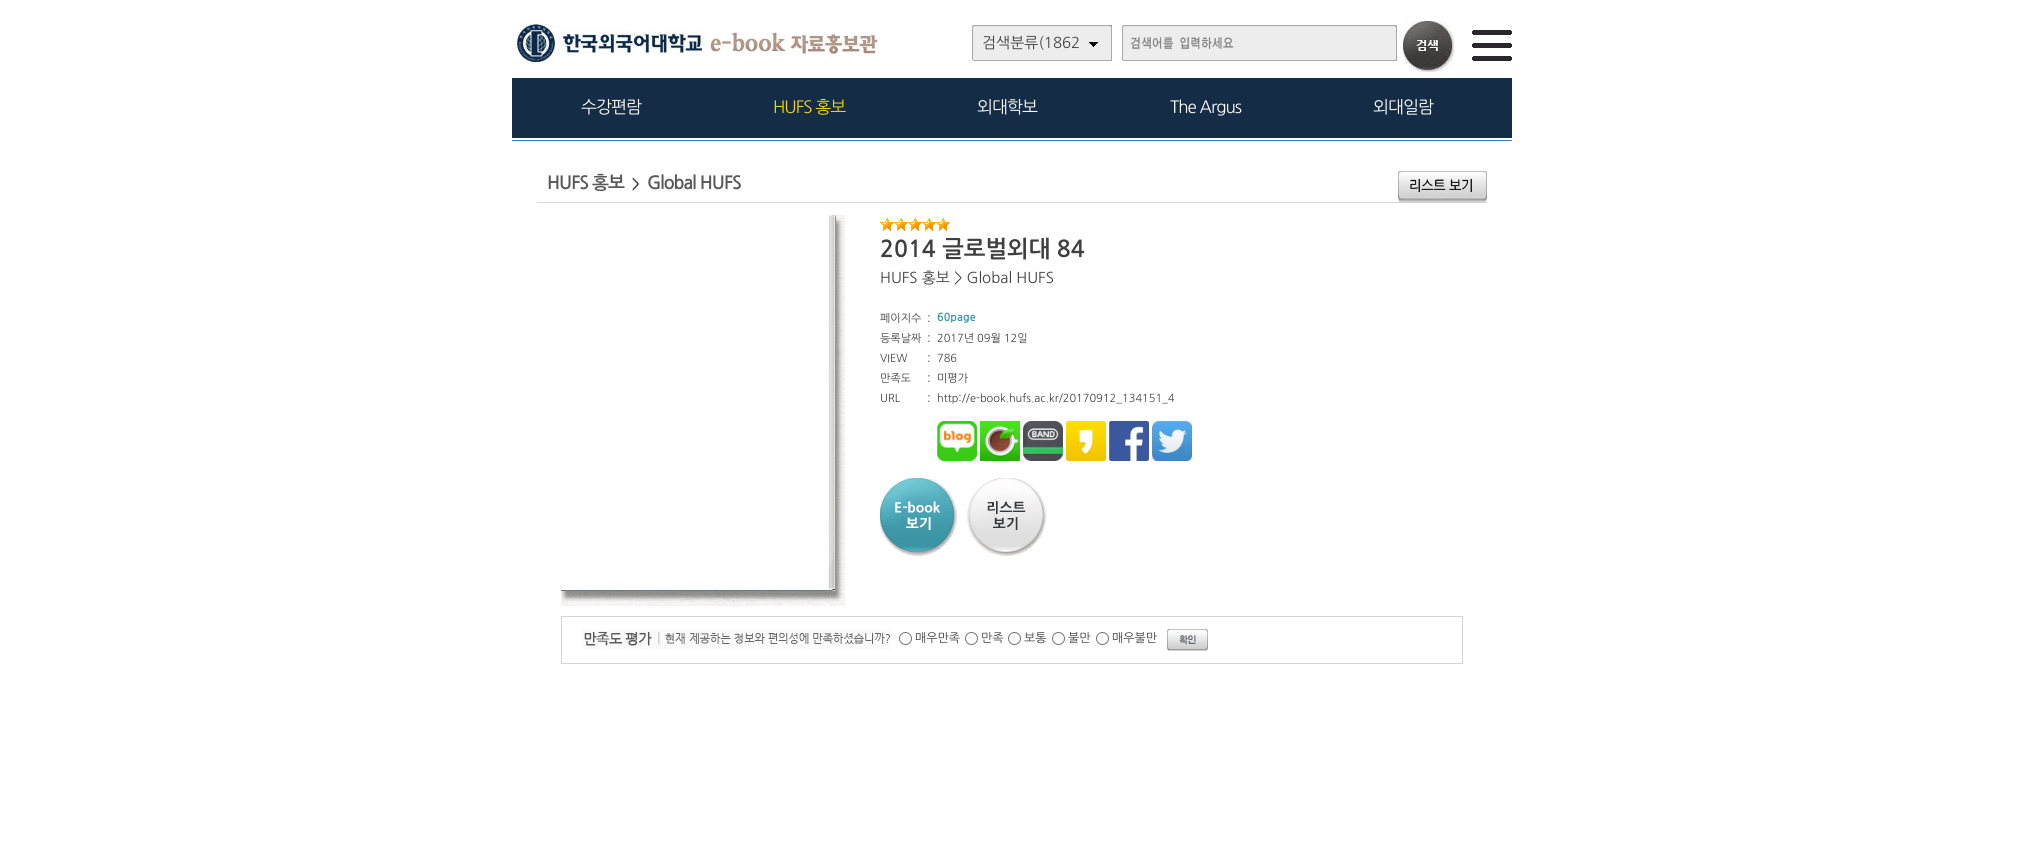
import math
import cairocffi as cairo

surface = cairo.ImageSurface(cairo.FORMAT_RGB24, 2024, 860)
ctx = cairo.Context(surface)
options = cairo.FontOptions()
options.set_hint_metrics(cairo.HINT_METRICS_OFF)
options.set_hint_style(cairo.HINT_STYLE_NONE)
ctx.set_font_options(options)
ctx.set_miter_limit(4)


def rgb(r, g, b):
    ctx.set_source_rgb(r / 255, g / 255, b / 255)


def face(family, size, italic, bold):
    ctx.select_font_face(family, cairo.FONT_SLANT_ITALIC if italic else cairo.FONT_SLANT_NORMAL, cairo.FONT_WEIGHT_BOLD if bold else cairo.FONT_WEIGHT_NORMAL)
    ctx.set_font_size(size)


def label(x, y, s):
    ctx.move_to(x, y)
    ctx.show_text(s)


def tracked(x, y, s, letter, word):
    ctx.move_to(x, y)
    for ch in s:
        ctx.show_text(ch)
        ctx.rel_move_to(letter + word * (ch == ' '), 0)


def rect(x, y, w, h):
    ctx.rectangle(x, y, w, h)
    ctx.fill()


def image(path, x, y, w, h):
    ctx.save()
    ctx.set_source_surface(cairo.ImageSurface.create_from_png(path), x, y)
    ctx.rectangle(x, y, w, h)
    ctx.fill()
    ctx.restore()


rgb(255, 255, 255)
ctx.paint()
image('image0.png', 513, 23, 365, 40)
image('image1.png', 972, 25, 140, 36)
face('NanumGothic', 15, 0, 0)
rgb(63, 63, 63)
label(982, 48, '검색분류(1862')
image('image2.png', 1122, 25, 275, 36)
image('image3.png', 1399, 19, 56, 54)
image('image4.png', 1472, 30, 40, 31)
rgb(20, 44, 70)
rect(512, 78, 1000, 60)
face('NanumGothic', 17, 0, 0)
rgb(255, 255, 255)
tracked(581, 113, '수강편람', -1, 0)
rgb(243, 213, 14)
tracked(773, 113, 'HUFS 홍보', -1, 0)
rgb(255, 255, 255)
tracked(977, 113, '외대학보', -1, 0)
tracked(1170, 113, 'The Argus', -1, 0)
tracked(1373, 113, '외대일람', -1, 0)
rgb(49, 128, 185)
rect(512, 140, 1000, 1)
face('NanumGothic', 18, 0, 1)
rgb(89, 89, 89)
tracked(547, 189, 'HUFS 홍보', -1, 0)
face('NanumGothic', 14, 0, 1)
rgb(63, 63, 63)
label(632, 189, '>')
face('NanumGothic', 18, 0, 1)
rgb(89, 89, 89)
tracked(647, 189, 'Global HUFS', -1, 0)
image('image5.png', 1398, 171, 89, 31)
rgb(214, 214, 214)
rect(537, 202, 950, 1)
image('image6.png', 561, 215, 284, 391)
image('image7.png', 880, 218, 14, 13)
image('image7.png', 894, 218, 14, 13)
image('image7.png', 908, 218, 14, 13)
image('image7.png', 922, 218, 14, 13)
image('image7.png', 936, 218, 14, 13)
face('NanumGothic', 23, 0, 1)
rgb(63, 63, 63)
label(880, 257, '2014 글로벌외대 84')
face('NanumGothic', 15, 0, 0)
label(880, 283, 'HUFS 홍보 > Global HUFS')
face('NanumGothic', 11, 0, 0)
label(880, 322, '페이지수')
face('NanumGothic', 12, 0, 0)
label(927, 323, ':')
face('NanumGothic', 11, 0, 1)
rgb(60, 149, 165)
label(937, 321, '60page')
face('NanumGothic', 11, 0, 0)
rgb(63, 63, 63)
label(880, 342, '등록날짜')
face('NanumGothic', 12, 0, 0)
label(927, 343, ':')
face('NanumGothic', 11, 0, 0)
label(937, 342, '2017년 09월 12일')
label(880, 362, 'VIEW')
face('NanumGothic', 12, 0, 0)
label(927, 363, ':')
face('NanumGothic', 11, 0, 0)
label(937, 362, '786')
label(880, 382, '만족도')
face('NanumGothic', 12, 0, 0)
label(927, 383, ':')
face('NanumGothic', 11, 0, 0)
label(937, 382, '미평가')
label(880, 402, 'URL')
face('NanumGothic', 12, 0, 0)
label(927, 403, ':')
face('NanumGothic', 11, 0, 0)
label(937, 402, 'http://e-book.hufs.ac.kr/20170912_134151_4')
image('image8.png', 937, 421, 40, 40)
image('image9.png', 980, 421, 40, 40)
image('image10.png', 1023, 421, 40, 40)
image('image11.png', 1066, 421, 40, 40)
image('image12.png', 1109, 421, 40, 40)
image('image13.png', 1152, 421, 40, 40)
image('image14.png', 880, 478, 77, 78)
image('image15.png', 967, 478, 79, 78)
ctx.rectangle(561.5, 616.5, 901, 47)
rgb(212, 212, 212)
ctx.set_line_width(1)
ctx.stroke()
image('image16.png', 582, 630, 309, 19)
ctx.arc(905.5, 638.5, 6, 0, 2 * math.pi)
rgb(118, 118, 118)
ctx.stroke()
face('NanumGothic', 12, 0, 0)
rgb(63, 63, 63)
label(915, 642, '매우만족')
ctx.new_path()
ctx.arc(971.5, 638.5, 6, 0, 2 * math.pi)
rgb(118, 118, 118)
ctx.stroke()
rgb(63, 63, 63)
label(981, 642, '만족')
ctx.new_path()
ctx.arc(1014.5, 638.5, 6, 0, 2 * math.pi)
rgb(118, 118, 118)
ctx.stroke()
rgb(63, 63, 63)
label(1024, 642, '보통')
ctx.new_path()
ctx.arc(1058.5, 638.5, 6, 0, 2 * math.pi)
rgb(118, 118, 118)
ctx.stroke()
rgb(63, 63, 63)
label(1068, 642, '불만')
ctx.new_path()
ctx.arc(1102.5, 638.5, 6, 0, 2 * math.pi)
rgb(118, 118, 118)
ctx.stroke()
rgb(63, 63, 63)
label(1112, 642, '매우불만')
image('image17.png', 1167, 629, 41, 22)
surface.write_to_png('render.png')
